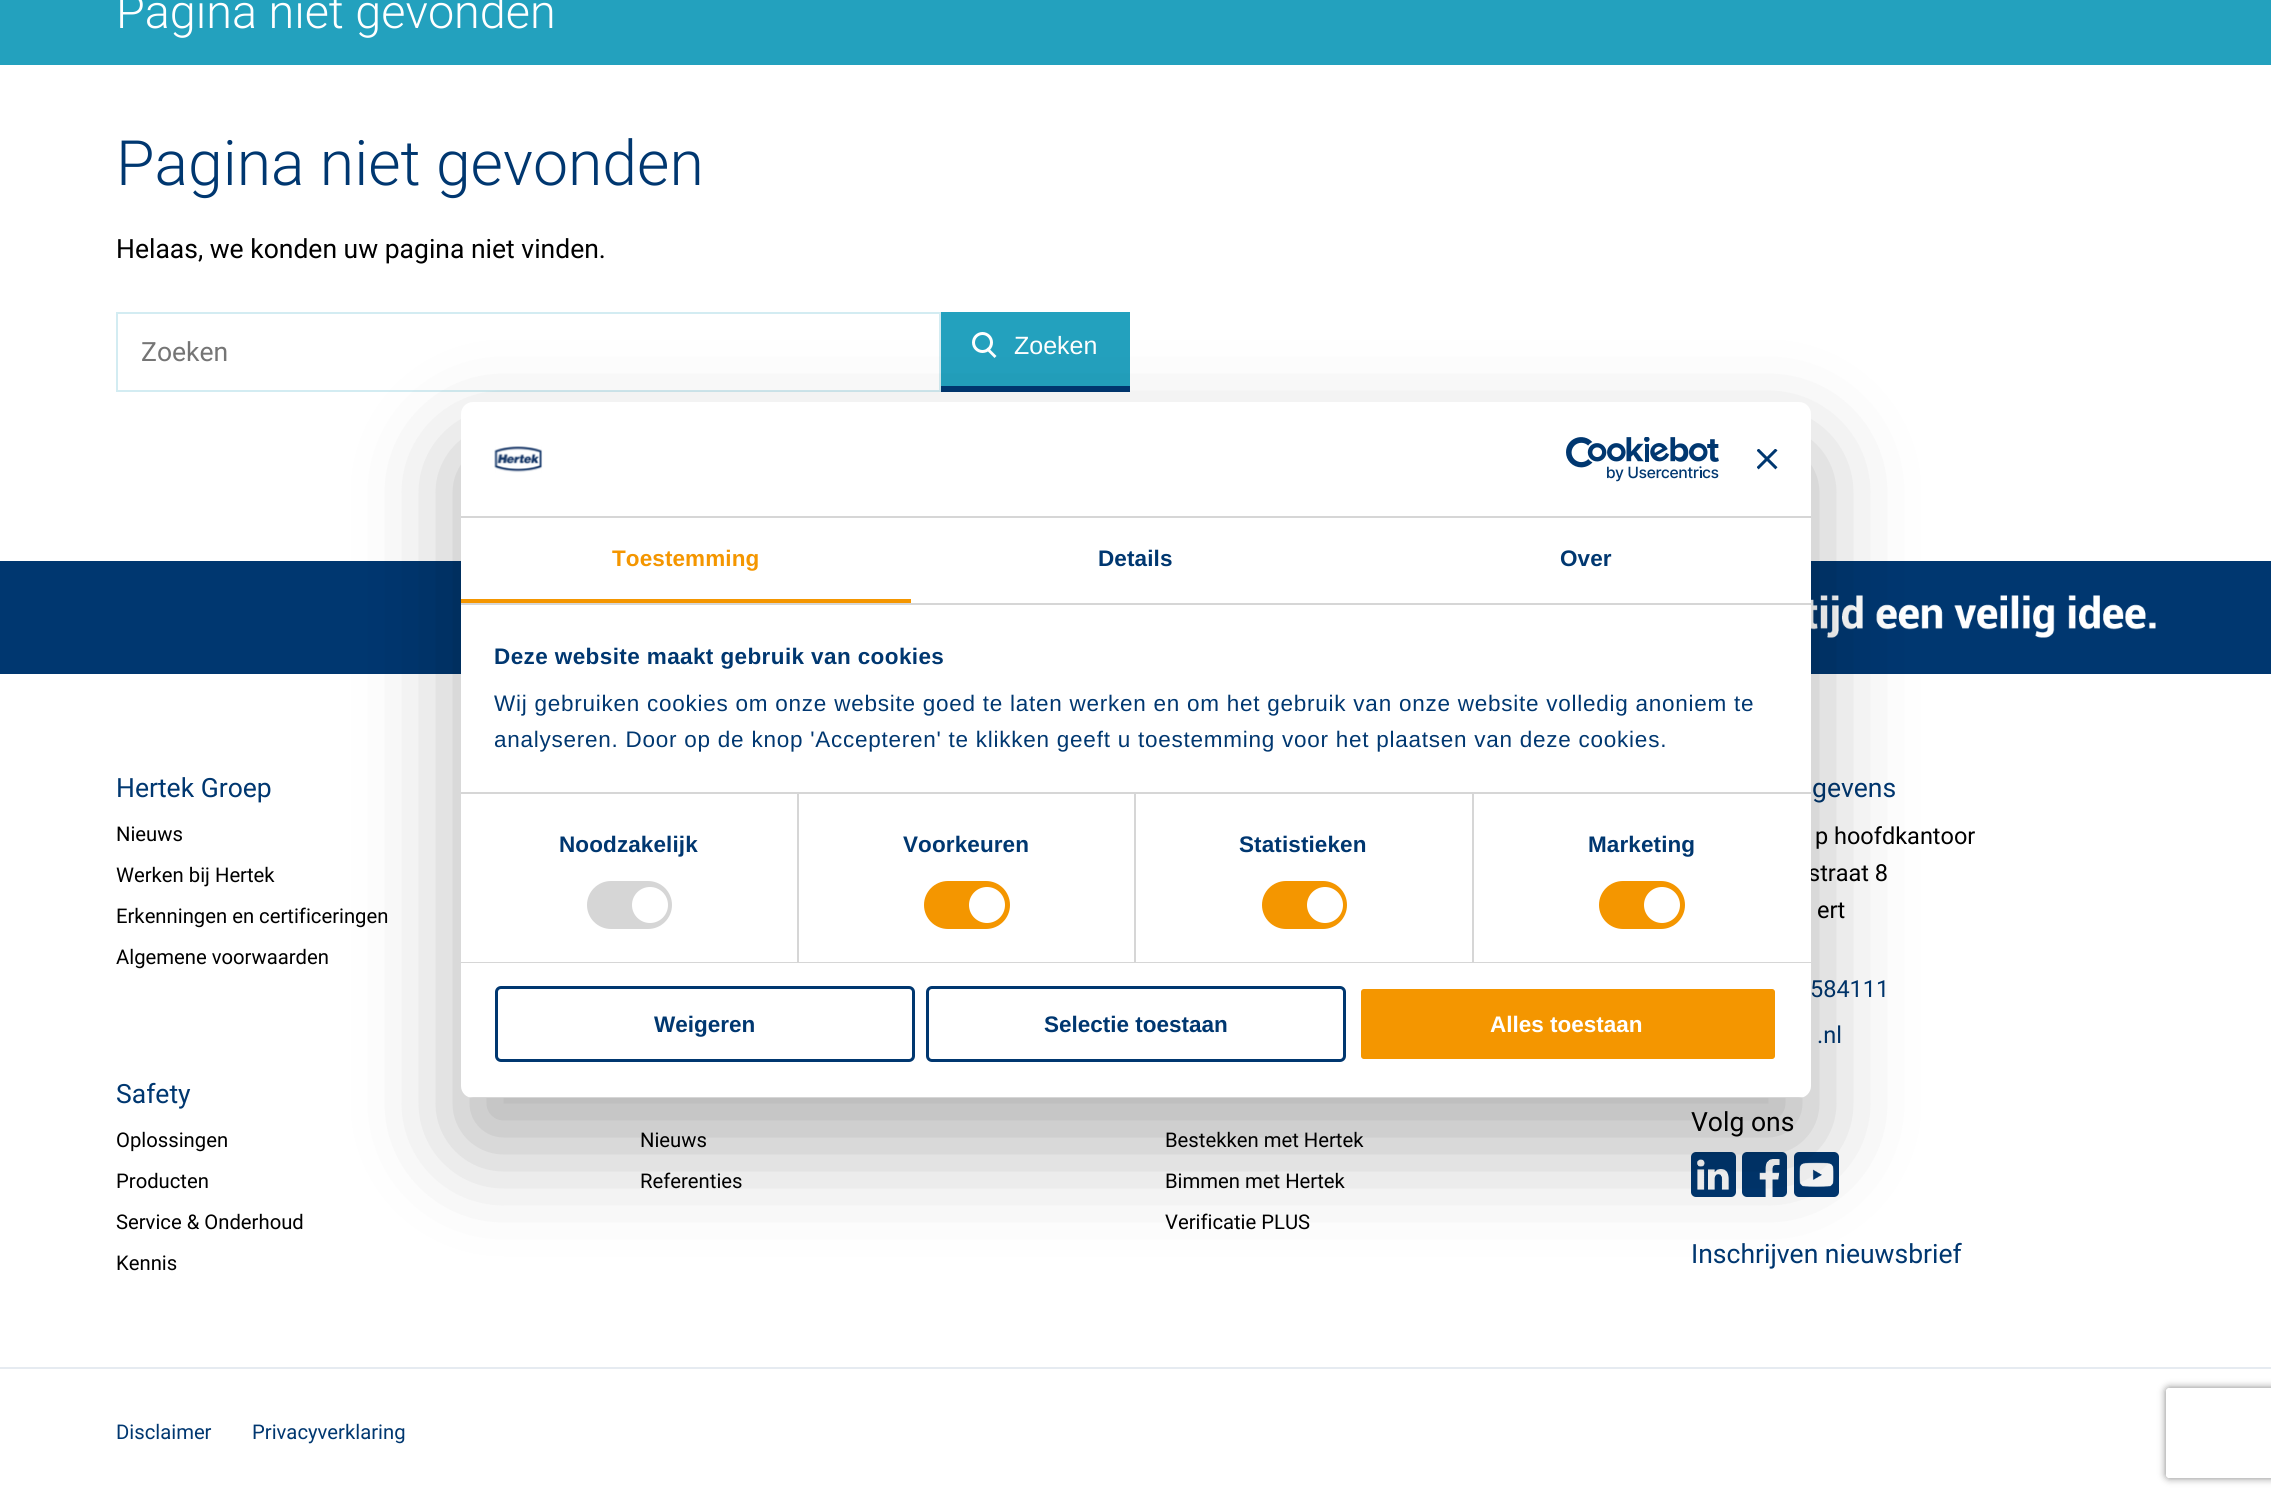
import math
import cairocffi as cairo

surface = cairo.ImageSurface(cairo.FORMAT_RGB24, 2271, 1498)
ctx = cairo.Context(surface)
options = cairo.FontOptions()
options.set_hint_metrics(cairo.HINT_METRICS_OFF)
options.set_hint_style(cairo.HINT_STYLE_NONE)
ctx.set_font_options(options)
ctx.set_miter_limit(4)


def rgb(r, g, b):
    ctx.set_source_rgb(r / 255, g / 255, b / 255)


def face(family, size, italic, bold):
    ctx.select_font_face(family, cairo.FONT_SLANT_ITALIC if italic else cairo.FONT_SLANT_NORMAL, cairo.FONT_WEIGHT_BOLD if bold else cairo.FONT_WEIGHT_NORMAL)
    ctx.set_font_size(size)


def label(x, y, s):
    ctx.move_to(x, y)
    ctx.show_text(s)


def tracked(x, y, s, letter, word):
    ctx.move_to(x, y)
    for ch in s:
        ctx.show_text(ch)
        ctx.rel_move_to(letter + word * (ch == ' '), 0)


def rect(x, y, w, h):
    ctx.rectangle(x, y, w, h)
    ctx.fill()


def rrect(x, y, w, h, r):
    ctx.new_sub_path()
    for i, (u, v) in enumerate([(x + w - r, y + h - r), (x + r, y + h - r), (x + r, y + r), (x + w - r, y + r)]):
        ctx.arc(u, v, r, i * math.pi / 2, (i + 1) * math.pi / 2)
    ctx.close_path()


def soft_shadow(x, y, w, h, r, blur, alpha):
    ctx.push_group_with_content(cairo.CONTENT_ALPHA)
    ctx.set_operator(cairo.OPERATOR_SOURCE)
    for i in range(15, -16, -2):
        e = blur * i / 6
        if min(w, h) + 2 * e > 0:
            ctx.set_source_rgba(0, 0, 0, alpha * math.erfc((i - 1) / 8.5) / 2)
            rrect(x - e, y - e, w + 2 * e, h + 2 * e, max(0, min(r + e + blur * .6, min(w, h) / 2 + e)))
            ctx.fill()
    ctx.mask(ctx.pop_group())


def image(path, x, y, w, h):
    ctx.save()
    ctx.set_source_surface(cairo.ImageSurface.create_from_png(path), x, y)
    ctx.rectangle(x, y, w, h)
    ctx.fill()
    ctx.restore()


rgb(255, 255, 255)
ctx.paint()
rgb(35, 161, 190)
rect(0, 0, 2271, 65)
face('Roboto Light', 46.75, 0, 0)
rgb(255, 255, 255)
label(116, 28, 'Pagina niet gevonden')
face('Roboto Light', 62.5, 0, 0)
rgb(0, 55, 112)
label(116, 185, 'Pagina niet gevonden')
face('Roboto', 26.5, 0, 0)
rgb(0, 0, 0)
label(116, 258, 'Helaas, we konden uw pagina niet vinden.')
ctx.rectangle(117, 313, 823, 78)
rgb(211, 236, 242)
ctx.stroke()
rgb(117, 117, 117)
label(141, 361, 'Zoeken')
rgb(35, 161, 190)
rect(941, 312, 189, 74)
rgb(0, 55, 112)
rect(941, 386, 189, 6)
ctx.new_path()
ctx.arc(982.5, 342.5, 9, 0, 2 * math.pi)
rgb(255, 255, 255)
ctx.set_line_width(3)
ctx.stroke()
ctx.new_path()
ctx.move_to(988, 347.5)
ctx.line_to(996.5, 356)
ctx.line_to(994.5, 358)
ctx.line_to(986, 349.5)
ctx.close_path()
ctx.fill()
face('Liberation Sans', 25, 0, 0)
label(1014, 354, 'Zoeken')
rgb(0, 55, 112)
rect(0, 561, 2271, 113)
image('image0.png', 1811, 595, 345, 43)
face('Roboto', 26.5, 0, 0)
label(116, 797, 'Hertek Groep')
face('Roboto', 20.25, 0, 0)
rgb(0, 0, 0)
label(116, 841, 'Nieuws')
label(116, 882, 'Werken bij Hertek')
label(116, 923, 'Erkenningen en certificeringen')
label(116, 964, 'Algemene voorwaarden')
face('Roboto', 26.5, 0, 0)
rgb(0, 55, 112)
label(116, 1103, 'Safety')
face('Roboto', 20.25, 0, 0)
rgb(0, 0, 0)
label(116, 1147, 'Oplossingen')
label(116, 1188, 'Producten')
label(116, 1229, 'Service & Onderhoud')
label(116, 1270, 'Kennis')
label(640, 1147, 'Nieuws')
label(640, 1188, 'Referenties')
label(1165, 1147, 'Bestekken met Hertek')
label(1165, 1188, 'Bimmen met Hertek')
label(1165, 1229, 'Verificatie PLUS')
face('Roboto', 26.5, 0, 0)
rgb(0, 55, 112)
label(1812, 797, 'gevens')
face('Roboto', 23.5, 0, 0)
rgb(0, 0, 0)
label(1815, 844, 'p hoofdkantoor')
label(1808, 881, 'straat 8')
label(1817, 918, 'ert')
rgb(0, 55, 112)
label(1810, 997, '584111')
label(1817, 1043, '.nl')
face('Roboto', 26.5, 0, 0)
rgb(0, 0, 0)
label(1691, 1131, 'Volg ons')
rgb(0, 55, 112)
rrect(1691, 1152, 45, 45, 5)
ctx.fill()
image('image1.png', 1697, 1159, 32, 31)
rrect(1742, 1152, 45, 45, 5)
ctx.fill()
image('image2.png', 1759, 1159, 21, 38)
rrect(1794, 1152, 45, 45, 5)
ctx.fill()
image('image3.png', 1799, 1162, 35, 25)
label(1691, 1263, 'Inschrijven nieuwsbrief')
rgb(230, 235, 241)
rect(0, 1367, 2271, 2)
face('Roboto', 20.25, 0, 0)
rgb(0, 55, 112)
label(116, 1439, 'Disclaimer')
label(252, 1439, 'Privacyverklaring')
rgb(0, 0, 0)
soft_shadow(461, 450, 1350, 696, 12, 51, 0.3)
rgb(255, 255, 255)
rrect(461, 402, 1350, 696, 12)
ctx.fill()
rgb(214, 214, 214)
rect(461, 516, 1350, 2)
image('image4.png', 494, 446, 49, 27)
image('image5.png', 1566, 437, 153, 45)
image('image6.png', 1757, 449, 21, 21)
rect(461, 603, 1350, 2)
rgb(244, 150, 0)
rect(461, 599, 450, 4)
face('Liberation Sans', 22.5, 0, 1)
tracked(612, 566, 'Toestemming', 0.1, 0)
rgb(0, 55, 112)
tracked(1098, 566, 'Details', 0.1, 0)
tracked(1560, 566, 'Over', 0.1, 0)
rgb(214, 214, 214)
rect(461, 792, 1350, 2)
rgb(0, 55, 112)
tracked(494, 664, 'Deze website maakt gebruik van cookies', 0.4, 0)
face('Liberation Sans', 22.5, 0, 0)
tracked(494, 711, 'Wij gebruiken cookies om onze website goed te laten werken en om het gebruik van onze website volledig anoniem te', 0.75, 0)
tracked(494, 747, 'analyseren. Door op de knop \'Accepteren\' te klikken geeft u toestemming voor het plaatsen van deze cookies.', 0.75, 0)
rgb(214, 214, 214)
rect(461, 962, 1350, 1)
rect(797, 794, 2, 168)
face('Liberation Sans', 22.5, 0, 1)
rgb(0, 55, 112)
tracked(559, 852, 'Noodzakelijk', 0.1, 0)
rgb(214, 214, 214)
rrect(587, 881, 85, 48, 24)
ctx.fill()
rgb(255, 255, 255)
ctx.arc(650, 905, 18, 0, 2 * math.pi)
ctx.fill()
rgb(214, 214, 214)
rect(1134, 794, 2, 168)
rgb(0, 55, 112)
tracked(903, 852, 'Voorkeuren', 0.1, 0)
rgb(244, 150, 0)
rrect(924, 881, 86, 48, 24)
ctx.fill()
rgb(255, 255, 255)
ctx.arc(987, 905, 18, 0, 2 * math.pi)
ctx.fill()
rgb(214, 214, 214)
rect(1472, 794, 2, 168)
rgb(0, 55, 112)
tracked(1239, 852, 'Statistieken', 0.1, 0)
rgb(244, 150, 0)
rrect(1262, 881, 85, 48, 24)
ctx.fill()
rgb(255, 255, 255)
ctx.arc(1325, 905, 18, 0, 2 * math.pi)
ctx.fill()
rgb(0, 55, 112)
tracked(1588, 852, 'Marketing', 0.1, 0)
rgb(244, 150, 0)
rrect(1599, 881, 86, 48, 24)
ctx.fill()
rgb(255, 255, 255)
ctx.arc(1662, 905, 18, 0, 2 * math.pi)
ctx.fill()
ctx.save()
rrect(461, 402, 1350, 696, 12)
ctx.clip()
rgb(214, 214, 214)
rect(461, 1097, 1350, 1)
ctx.restore()
rrect(496.5, 987.5, 417, 73, 4.5)
rgb(0, 55, 112)
ctx.stroke()
label(654, 1032, 'Weigeren')
rrect(927.5, 987.5, 417, 73, 4.5)
ctx.stroke()
label(1044, 1032, 'Selectie toestaan')
rgb(244, 150, 0)
rrect(1359.5, 987.5, 417, 73, 4.5)
ctx.fill_preserve()
rgb(255, 255, 255)
ctx.stroke()
label(1490, 1032, 'Alles toestaan')
ctx.save()
ctx.set_fill_rule(cairo.FILL_RULE_EVEN_ODD)
ctx.new_path()
ctx.move_to(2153, 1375)
ctx.line_to(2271, 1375)
ctx.line_to(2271, 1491)
ctx.line_to(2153, 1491)
ctx.close_path()
ctx.move_to(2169, 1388)
ctx.line_to(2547, 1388)
ctx.curve_to(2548.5, 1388, 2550, 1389.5, 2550, 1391)
ctx.line_to(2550, 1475)
ctx.curve_to(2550, 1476.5, 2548.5, 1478, 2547, 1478)
ctx.line_to(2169, 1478)
ctx.curve_to(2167.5, 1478, 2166, 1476.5, 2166, 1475)
ctx.line_to(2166, 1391)
ctx.curve_to(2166, 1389.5, 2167.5, 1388, 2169, 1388)
ctx.close_path()
ctx.clip()
rgb(128, 128, 128)
soft_shadow(2166, 1388, 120, 90, 3, 4, 1)
ctx.restore()
surface.write_to_png('render.png')
